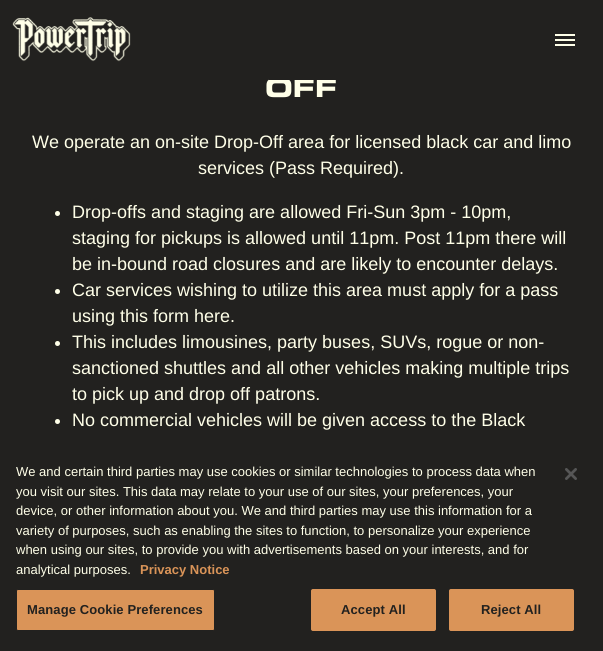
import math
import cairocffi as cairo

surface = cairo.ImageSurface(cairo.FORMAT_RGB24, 603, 651)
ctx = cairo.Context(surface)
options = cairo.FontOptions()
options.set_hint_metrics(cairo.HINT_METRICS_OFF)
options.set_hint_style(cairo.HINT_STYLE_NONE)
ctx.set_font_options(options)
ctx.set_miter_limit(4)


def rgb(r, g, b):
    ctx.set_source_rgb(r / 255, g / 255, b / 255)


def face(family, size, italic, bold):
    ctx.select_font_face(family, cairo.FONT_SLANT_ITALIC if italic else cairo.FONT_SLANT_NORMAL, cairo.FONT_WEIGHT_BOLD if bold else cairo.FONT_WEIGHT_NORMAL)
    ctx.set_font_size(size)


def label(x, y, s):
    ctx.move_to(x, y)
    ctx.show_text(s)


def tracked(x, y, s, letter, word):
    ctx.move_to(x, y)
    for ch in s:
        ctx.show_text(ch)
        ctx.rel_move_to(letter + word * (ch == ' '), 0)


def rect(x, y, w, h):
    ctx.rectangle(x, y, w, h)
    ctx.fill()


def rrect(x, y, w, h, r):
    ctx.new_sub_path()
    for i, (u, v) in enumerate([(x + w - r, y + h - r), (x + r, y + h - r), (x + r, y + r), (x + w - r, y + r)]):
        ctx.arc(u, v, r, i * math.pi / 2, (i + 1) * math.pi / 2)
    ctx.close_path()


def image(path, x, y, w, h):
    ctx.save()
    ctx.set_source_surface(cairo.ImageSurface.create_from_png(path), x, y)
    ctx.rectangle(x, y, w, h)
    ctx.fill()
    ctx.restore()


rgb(34, 33, 31)
ctx.paint()
face('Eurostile', 25, 0, 1)
rgb(255, 255, 232)
label(265, 97, 'OFF')
rgb(34, 33, 31)
rect(269, 78, 68, 2)
image('image0.png', 12, 17, 119, 45)
rgb(255, 255, 232)
rect(555, 34, 20, 2)
rect(555, 39, 20, 2)
rect(555, 44, 20, 2)
face('Liberation Sans', 18, 0, 0)
label(32, 148, 'We operate an on-site Drop-Off area for licensed black car and limo')
label(198, 174, 'services (Pass Required).')
ctx.new_path()
ctx.arc(57.5, 213.5, 2.5, 0, 2 * math.pi)
ctx.fill()
label(72, 218, 'Drop-offs and staging are allowed Fri-Sun 3pm - 10pm,')
label(72, 244, 'staging for pickups is allowed until 11pm. Post 11pm there will')
label(72, 270, 'be in-bound road closures and are likely to encounter delays.')
ctx.new_path()
ctx.arc(57.5, 291.5, 2.5, 0, 2 * math.pi)
ctx.fill()
label(72, 296, 'Car services wishing to utilize this area must apply for a pass')
label(72, 322, 'using this form here.')
ctx.new_path()
ctx.arc(57.5, 343.5, 2.5, 0, 2 * math.pi)
ctx.fill()
label(72, 348, 'This includes limousines, party buses, SUVs, rogue or non-')
label(72, 374, 'sanctioned shuttles and all other vehicles making multiple trips')
label(72, 400, 'to pick up and drop off patrons.')
ctx.new_path()
ctx.arc(57.5, 421.5, 2.5, 0, 2 * math.pi)
ctx.fill()
label(72, 426, 'No commercial vehicles will be given access to the Black')
face('Liberation Sans', 13, 0, 0)
label(16, 476, 'We and certain third parties may use cookies or similar technologies to process data when')
label(16, 496, 'you visit our sites. This data may relate to your use of our sites, your preferences, your')
label(16, 515, 'device, or other information about you. We and third parties may use this information for a')
label(16, 535, 'variety of purposes, such as enabling the sites to function, to personalize your experience')
label(16, 554, 'when using our sites, to provide you with advertisements based on your interests, and for')
label(16, 574, 'analytical purposes.')
face('Liberation Sans', 13, 0, 1)
rgb(218, 148, 88)
label(140, 574, 'Privacy Notice')
rrect(16.5, 589.5, 198, 41, 1.5)
ctx.fill_preserve()
rgb(34, 33, 31)
ctx.set_line_width(1)
ctx.stroke()
tracked(27, 614, 'Manage Cookie Preferences', 0.1, 0)
rgb(218, 148, 88)
rrect(311.5, 589.5, 124, 41, 1.5)
ctx.fill_preserve()
ctx.stroke()
rgb(34, 33, 31)
tracked(341, 614, 'Accept All', 0.1, 0)
rgb(218, 148, 88)
rrect(449.5, 589.5, 124, 41, 1.5)
ctx.fill_preserve()
ctx.stroke()
rgb(34, 33, 31)
tracked(481, 614, 'Reject All', 0.1, 0)
image('image1.png', 565, 468, 12, 12)
surface.write_to_png('render.png')
